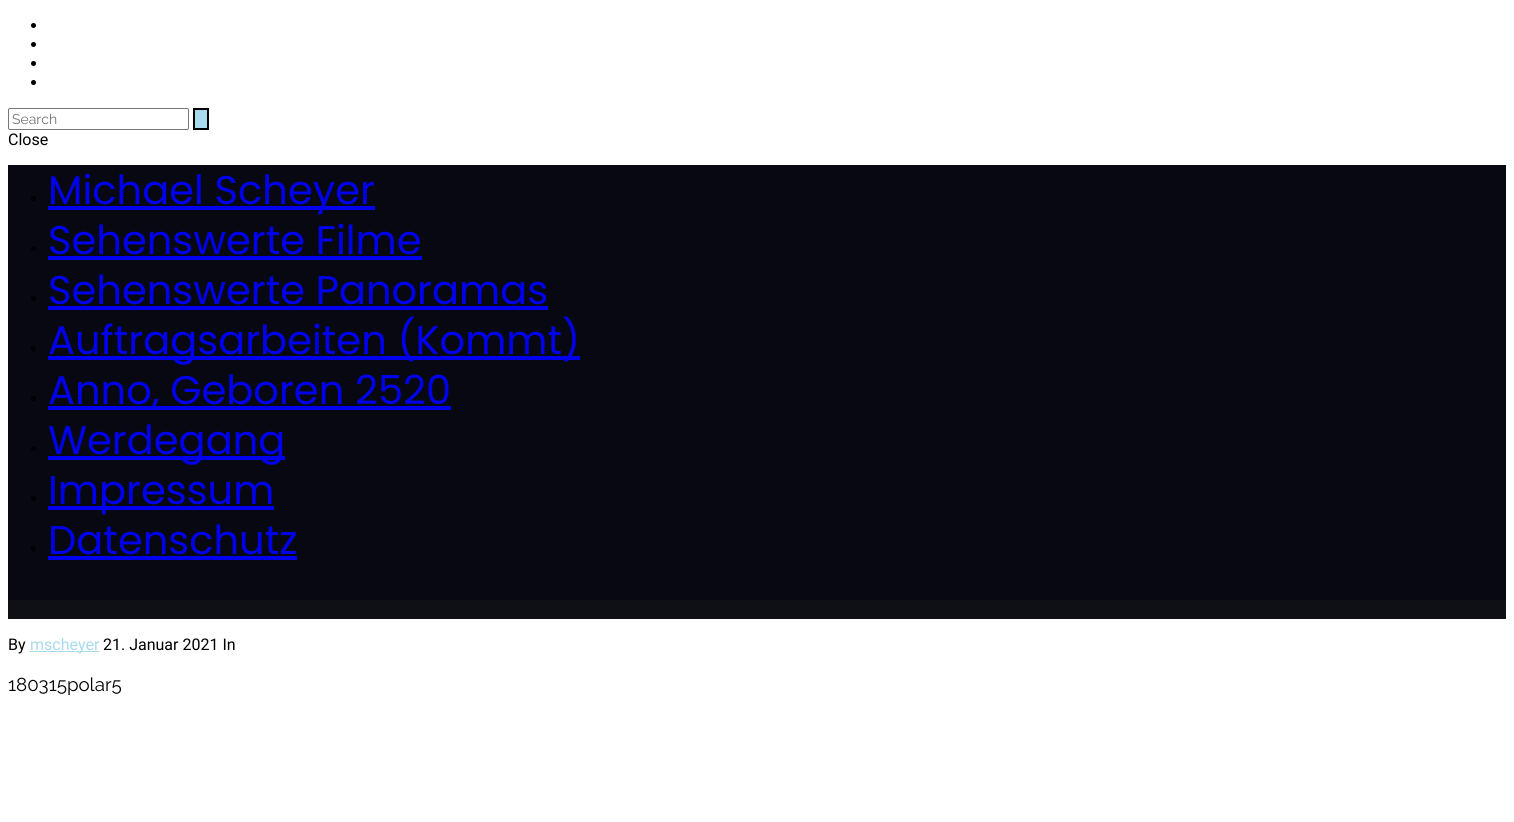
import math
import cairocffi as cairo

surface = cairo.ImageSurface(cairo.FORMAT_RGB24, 1514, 822)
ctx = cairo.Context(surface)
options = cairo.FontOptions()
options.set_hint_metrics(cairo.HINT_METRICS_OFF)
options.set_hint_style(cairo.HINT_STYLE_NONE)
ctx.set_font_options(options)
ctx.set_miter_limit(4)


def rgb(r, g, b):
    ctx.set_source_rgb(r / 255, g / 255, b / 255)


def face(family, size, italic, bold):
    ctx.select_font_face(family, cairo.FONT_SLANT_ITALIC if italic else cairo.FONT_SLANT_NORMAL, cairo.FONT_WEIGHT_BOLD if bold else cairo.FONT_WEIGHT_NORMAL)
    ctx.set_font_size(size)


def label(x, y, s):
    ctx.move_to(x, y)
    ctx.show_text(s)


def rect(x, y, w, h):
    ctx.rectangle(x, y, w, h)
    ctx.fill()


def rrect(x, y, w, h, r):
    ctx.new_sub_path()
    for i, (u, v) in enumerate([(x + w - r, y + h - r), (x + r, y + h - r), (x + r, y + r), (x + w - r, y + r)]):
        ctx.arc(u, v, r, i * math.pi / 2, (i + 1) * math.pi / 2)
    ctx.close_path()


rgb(255, 255, 255)
ctx.paint()
rgb(0, 0, 0)
ctx.arc(33.5, 25.5, 2.5, 0, 2 * math.pi)
ctx.fill()
ctx.arc(33.5, 44.5, 2.5, 0, 2 * math.pi)
ctx.fill()
ctx.arc(33.5, 63.5, 2.5, 0, 2 * math.pi)
ctx.fill()
ctx.arc(33.5, 82.5, 2.5, 0, 2 * math.pi)
ctx.fill()
rrect(8.5, 108.5, 180, 21, 1.5)
rgb(118, 118, 118)
ctx.set_line_width(1)
ctx.stroke()
face('Raleway', 14, 0, 0)
rgb(117, 117, 117)
label(12, 124, 'Search')
rgb(168, 218, 237)
ctx.rectangle(194, 109, 14, 20)
ctx.fill_preserve()
rgb(0, 0, 0)
ctx.set_line_width(2)
ctx.stroke()
face('Roboto', 16, 0, 0)
label(8, 145, 'Close')
rgb(8, 8, 18)
rect(8, 165, 1498, 435)
rgb(0, 0, 0)
ctx.new_path()
ctx.arc(33.5, 198.5, 2.5, 0, 2 * math.pi)
ctx.fill()
rgb(0, 0, 238)
rect(48, 206, 327, 4)
face('Poppins', 40, 0, 0)
label(48, 204, 'Michael Scheyer')
rgb(0, 0, 0)
ctx.new_path()
ctx.arc(33.5, 248.5, 2.5, 0, 2 * math.pi)
ctx.fill()
rgb(0, 0, 238)
label(48, 254, 'Sehenswerte Filme')
rect(48, 256, 374, 4)
rgb(0, 0, 0)
ctx.new_path()
ctx.arc(33.5, 298.5, 2.5, 0, 2 * math.pi)
ctx.fill()
rgb(0, 0, 238)
label(48, 304, 'Sehenswerte Panoramas')
rect(48, 306, 500, 4)
rgb(0, 0, 0)
ctx.new_path()
ctx.arc(33.5, 348.5, 2.5, 0, 2 * math.pi)
ctx.fill()
rgb(0, 0, 238)
rect(48, 356, 532, 4)
label(48, 354, 'Auftragsarbeiten (Kommt)')
rgb(0, 0, 0)
ctx.new_path()
ctx.arc(33.5, 398.5, 2.5, 0, 2 * math.pi)
ctx.fill()
rgb(0, 0, 238)
rect(48, 406, 403, 4)
label(48, 404, 'Anno, Geboren 2520')
rgb(0, 0, 0)
ctx.new_path()
ctx.arc(33.5, 448.5, 2.5, 0, 2 * math.pi)
ctx.fill()
rgb(0, 0, 238)
rect(48, 456, 237, 4)
label(48, 454, 'Werdegang')
rgb(0, 0, 0)
ctx.new_path()
ctx.arc(33.5, 498.5, 2.5, 0, 2 * math.pi)
ctx.fill()
rgb(0, 0, 238)
rect(48, 506, 226, 4)
label(48, 504, 'Impressum')
rgb(0, 0, 0)
ctx.new_path()
ctx.arc(33.5, 548.5, 2.5, 0, 2 * math.pi)
ctx.fill()
rgb(0, 0, 238)
label(48, 554, 'Datenschutz')
rect(48, 556, 249, 4)
rgb(15, 15, 22)
rect(8, 600, 1498, 19)
face('Roboto', 16, 0, 0)
rgb(0, 0, 0)
label(8, 650, 'By')
rgb(168, 218, 237)
rect(30, 651, 69, 1)
label(30, 650, 'mscheyer')
rgb(0, 0, 0)
label(103, 650, '21. Januar 2021 In')
face('Raleway', 18.75, 0, 0)
label(8, 691, '180315polar5')
surface.write_to_png('render.png')
